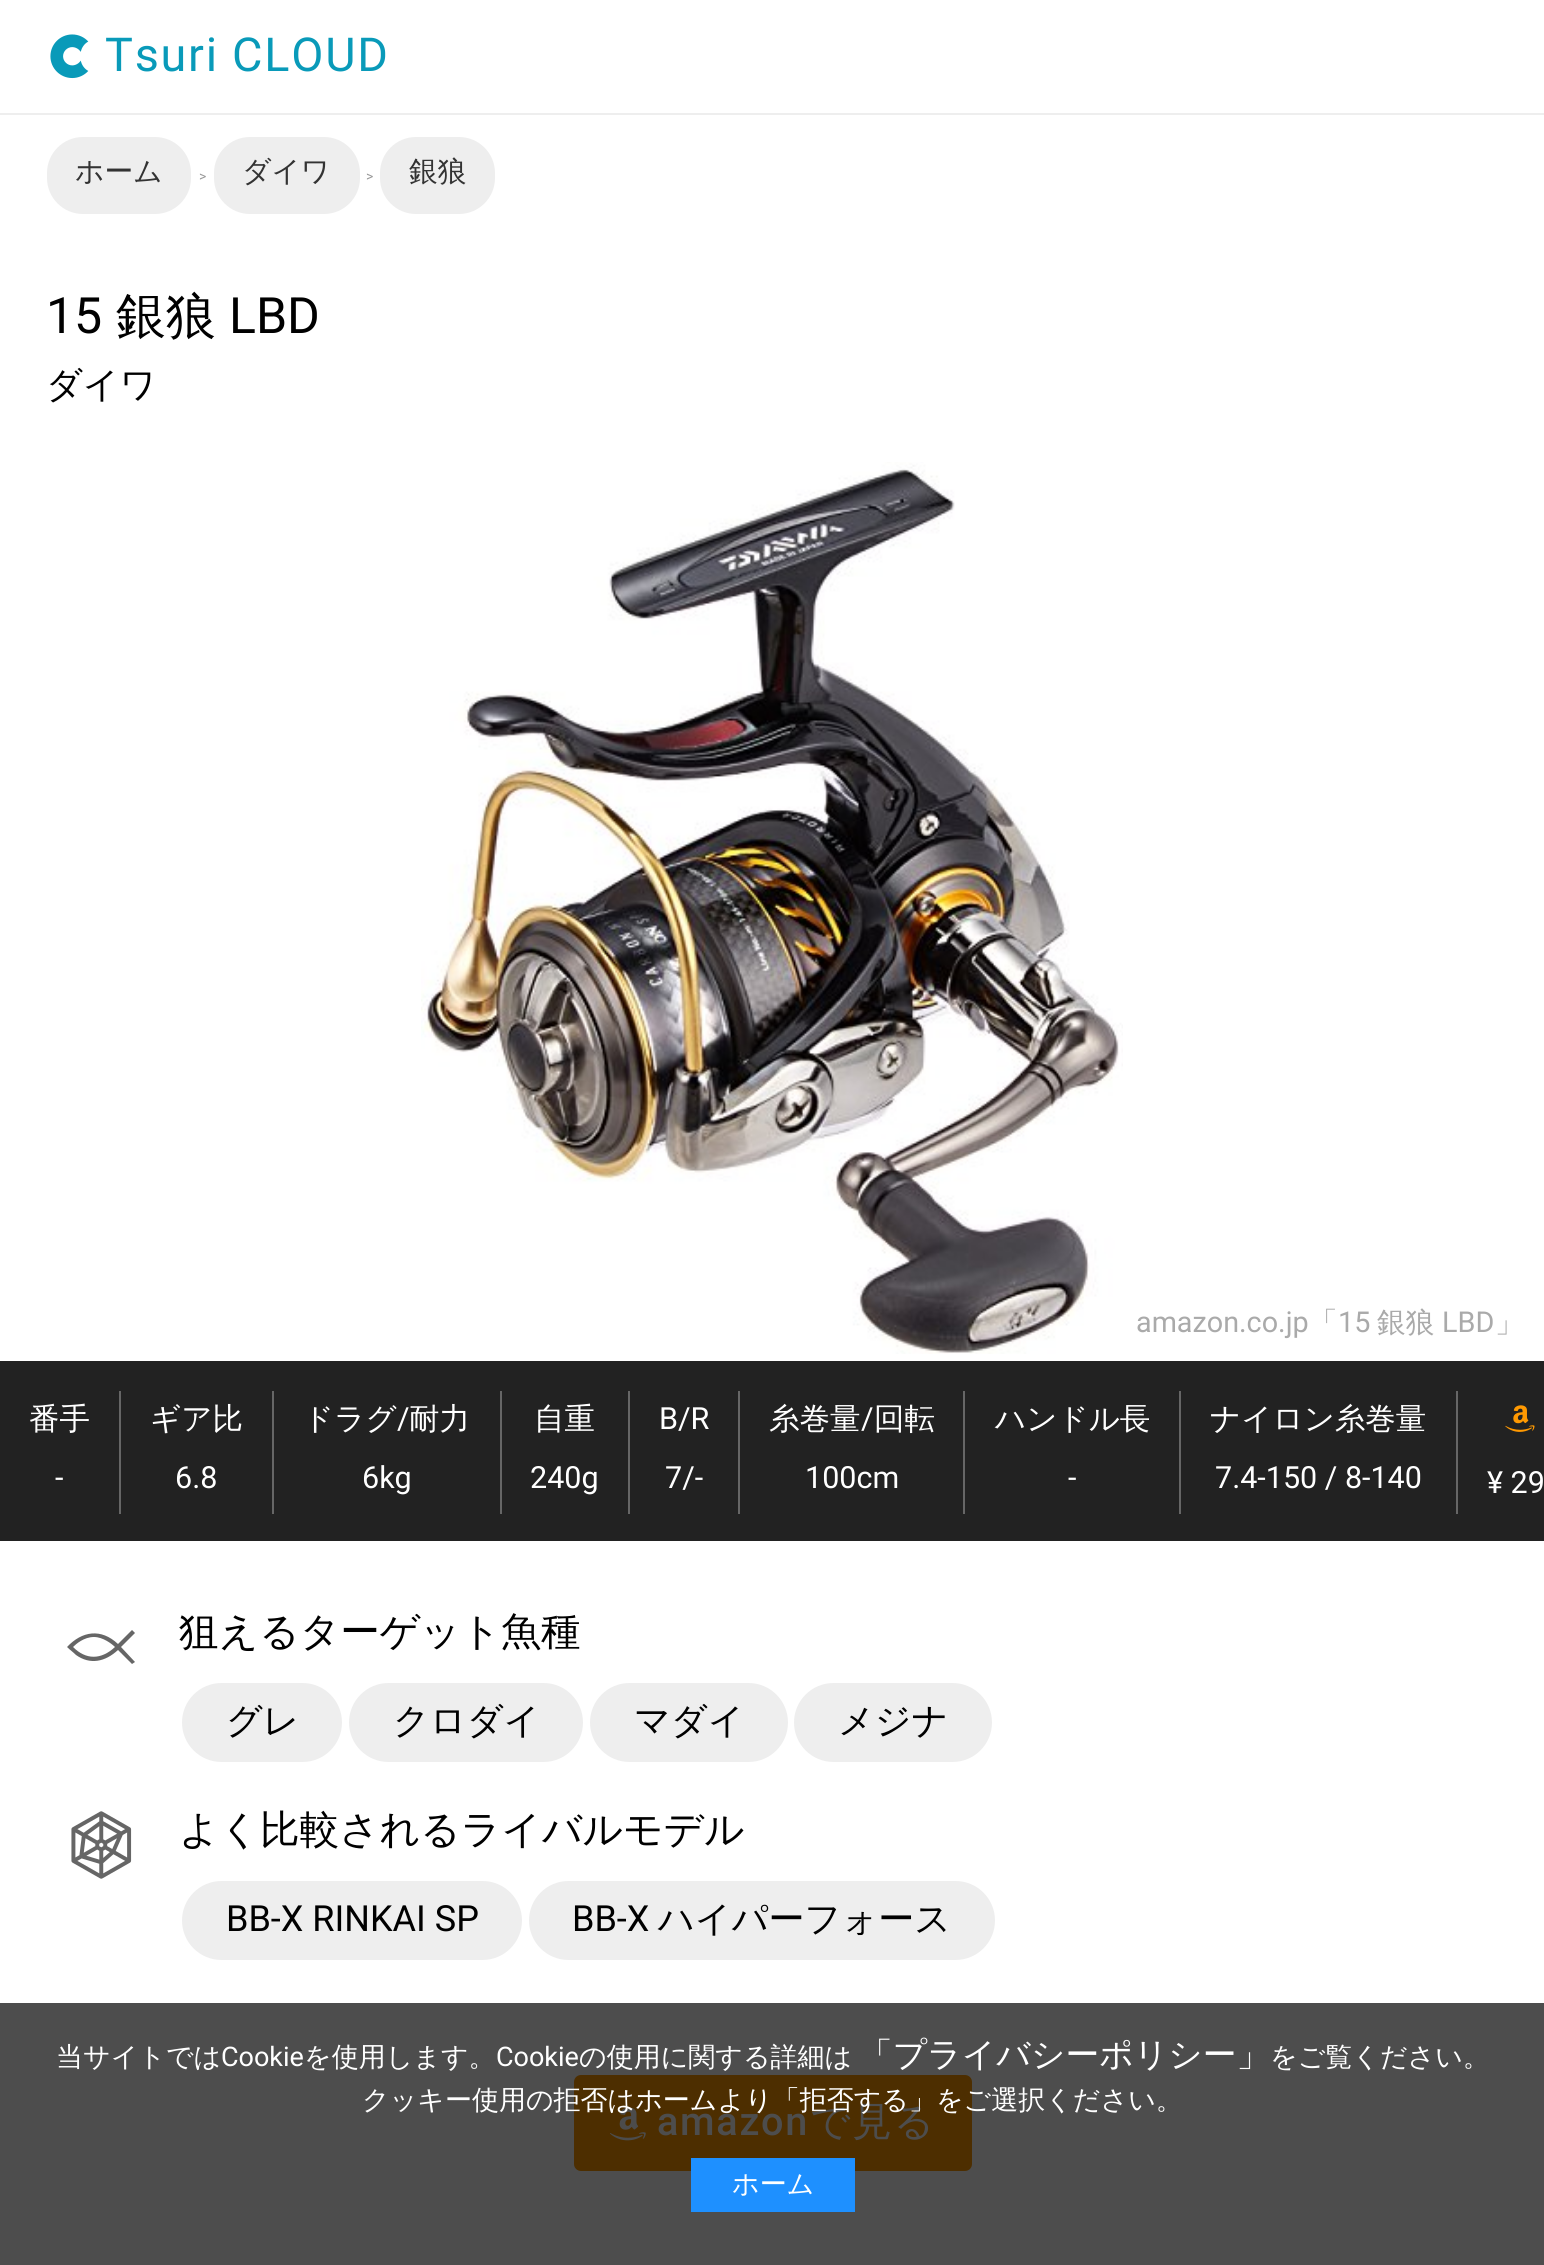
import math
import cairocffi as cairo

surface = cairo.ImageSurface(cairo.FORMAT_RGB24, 1544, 2265)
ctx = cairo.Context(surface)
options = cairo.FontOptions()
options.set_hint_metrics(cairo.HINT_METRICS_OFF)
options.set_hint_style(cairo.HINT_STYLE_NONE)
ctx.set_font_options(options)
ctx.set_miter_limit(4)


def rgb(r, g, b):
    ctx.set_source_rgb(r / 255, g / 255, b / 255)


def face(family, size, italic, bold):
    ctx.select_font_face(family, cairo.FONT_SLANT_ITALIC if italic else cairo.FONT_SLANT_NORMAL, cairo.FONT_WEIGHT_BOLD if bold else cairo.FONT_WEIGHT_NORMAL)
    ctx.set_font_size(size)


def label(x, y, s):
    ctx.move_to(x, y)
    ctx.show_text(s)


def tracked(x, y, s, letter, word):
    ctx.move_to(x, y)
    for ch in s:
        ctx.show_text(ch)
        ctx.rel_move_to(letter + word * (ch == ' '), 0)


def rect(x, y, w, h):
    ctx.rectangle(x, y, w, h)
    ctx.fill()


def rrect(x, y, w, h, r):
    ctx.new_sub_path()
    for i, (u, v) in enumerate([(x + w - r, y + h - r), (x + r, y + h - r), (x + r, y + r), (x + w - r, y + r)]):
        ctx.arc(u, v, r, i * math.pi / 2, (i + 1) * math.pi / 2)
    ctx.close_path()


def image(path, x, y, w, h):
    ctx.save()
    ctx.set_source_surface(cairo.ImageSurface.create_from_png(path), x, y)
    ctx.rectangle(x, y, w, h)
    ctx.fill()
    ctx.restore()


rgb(255, 255, 255)
ctx.paint()
rgb(77, 77, 77)
rect(0, 2003, 1544, 262)
rgb(238, 238, 238)
rect(0, 113, 1544, 2)
image('image0.png', 50, 34, 39, 45)
face('Roboto', 46.75, 0, 0)
rgb(9, 154, 185)
tracked(105, 71, 'Tsuri CLOUD', 1.75, 0)
rgb(238, 238, 238)
rrect(47, 137, 144, 77, 36)
ctx.fill()
face('WenQuanYi Zen Hei Medium', 28.75, 0, 0)
rgb(51, 51, 51)
label(75, 181, 'ホーム')
face('Roboto', 14, 0, 0)
rgb(153, 153, 153)
label(199, 181, '>')
rgb(238, 238, 238)
rrect(214, 137, 146, 77, 36)
ctx.fill()
face('WenQuanYi Zen Hei Medium', 28.75, 0, 0)
rgb(51, 51, 51)
label(242, 181, 'ダイワ')
face('Roboto', 14, 0, 0)
rgb(153, 153, 153)
label(366, 181, '>')
rgb(238, 238, 238)
rrect(380, 137, 115, 77, 36)
ctx.fill()
face('WenQuanYi Zen Hei Medium', 28.75, 0, 0)
rgb(51, 51, 51)
label(409, 181, '銀狼')
face('Roboto', 50, 0, 0)
rgb(0, 0, 0)
label(46, 333, '15')
face('WenQuanYi Zen Hei Medium', 50, 0, 0)
label(116, 333, '銀狼')
face('Roboto', 50, 0, 0)
label(229, 333, 'LBD')
face('WenQuanYi Zen Hei Medium', 36, 0, 0)
label(46, 397, 'ダイワ')
image('image1.png', 421, 462, 702, 892)
face('Roboto', 28.75, 0, 0)
rgb(170, 170, 170)
label(1136, 1332, 'amazon.co.jp')
face('WenQuanYi Zen Hei Medium', 28.75, 0, 0)
label(1309, 1332, '「')
face('Roboto', 28.75, 0, 0)
label(1338, 1332, '15')
face('WenQuanYi Zen Hei Medium', 28.75, 0, 0)
label(1377, 1332, '銀狼')
face('Roboto', 28.75, 0, 0)
label(1442, 1332, 'LBD')
face('WenQuanYi Zen Hei Medium', 28.75, 0, 0)
label(1495, 1332, '」')
rgb(34, 34, 34)
rect(0, 1361, 1544, 180)
face('WenQuanYi Zen Hei Medium', 30.5, 0, 0)
rgb(255, 255, 255)
label(29, 1429, '番手')
face('Roboto', 30.5, 0, 0)
label(55, 1488, '-')
rgb(102, 102, 102)
rect(119, 1391, 2, 123)
face('WenQuanYi Zen Hei Medium', 30.5, 0, 0)
rgb(255, 255, 255)
label(150, 1429, 'ギア比')
face('Roboto', 30.5, 0, 0)
label(175, 1488, '6.8')
rgb(102, 102, 102)
rect(272, 1391, 2, 123)
face('WenQuanYi Zen Hei Medium', 30.5, 0, 0)
rgb(255, 255, 255)
label(303, 1429, 'ドラグ')
face('Roboto', 30.5, 0, 0)
label(397, 1429, '/')
face('WenQuanYi Zen Hei Medium', 30.5, 0, 0)
label(409, 1429, '耐力')
face('Roboto', 30.5, 0, 0)
label(362, 1488, '6kg')
rgb(102, 102, 102)
rect(500, 1391, 2, 123)
face('WenQuanYi Zen Hei Medium', 30.5, 0, 0)
rgb(255, 255, 255)
label(534, 1429, '自重')
face('Roboto', 30.5, 0, 0)
label(530, 1488, '240g')
rgb(102, 102, 102)
rect(628, 1391, 2, 123)
rgb(255, 255, 255)
label(659, 1429, 'B/R')
label(665, 1488, '7/-')
rgb(102, 102, 102)
rect(738, 1391, 2, 123)
face('WenQuanYi Zen Hei Medium', 30.5, 0, 0)
rgb(255, 255, 255)
label(769, 1429, '糸巻量')
face('Roboto', 30.5, 0, 0)
label(861, 1429, '/')
face('WenQuanYi Zen Hei Medium', 30.5, 0, 0)
label(874, 1429, '回転')
face('Roboto', 30.5, 0, 0)
label(805, 1488, '100cm')
rgb(102, 102, 102)
rect(963, 1391, 2, 123)
face('WenQuanYi Zen Hei Medium', 30.5, 0, 0)
rgb(255, 255, 255)
label(995, 1429, 'ハンドル長')
face('Roboto', 30.5, 0, 0)
label(1068, 1488, '-')
rgb(102, 102, 102)
rect(1179, 1391, 2, 123)
face('WenQuanYi Zen Hei Medium', 30.5, 0, 0)
rgb(255, 255, 255)
label(1210, 1429, 'ナイロン糸巻量')
face('Roboto', 30.5, 0, 0)
label(1215, 1488, '7.4-150 / 8-140')
rgb(102, 102, 102)
rect(1456, 1391, 2, 123)
image('image2.png', 1505, 1405, 30, 27)
rgb(255, 255, 255)
label(1487, 1493, '¥ 29')
rgb(102, 102, 102)
ctx.new_path()
ctx.move_to(76, 1655)
ctx.curve_to(90, 1665, 105, 1662, 118, 1650)
ctx.line_to(132, 1664)
ctx.line_to(135, 1662)
ctx.line_to(121, 1647)
ctx.line_to(135, 1633)
ctx.line_to(132, 1630)
ctx.line_to(118, 1644)
ctx.curve_to(101, 1628, 82, 1631, 67, 1647)
ctx.curve_to(70, 1650, 73, 1652, 76, 1655)
ctx.close_path()
ctx.move_to(94, 1637)
ctx.curve_to(103, 1637, 112, 1644, 115, 1647)
ctx.curve_to(101, 1660, 86, 1660, 73, 1647)
ctx.curve_to(76, 1644, 84, 1637, 94, 1637)
ctx.close_path()
ctx.fill()
face('WenQuanYi Zen Hei Medium', 39.6, 0, 0)
rgb(0, 0, 0)
label(179, 1645, '狙えるターゲット魚種')
rgb(238, 238, 238)
rrect(182, 1683, 160, 79, 39.5)
ctx.fill()
face('WenQuanYi Zen Hei Medium', 36, 0, 0)
rgb(0, 0, 0)
label(226, 1733, 'グレ')
rgb(238, 238, 238)
rrect(349, 1683, 234, 79, 39.5)
ctx.fill()
rgb(0, 0, 0)
label(393, 1733, 'クロダイ')
rgb(238, 238, 238)
rrect(590, 1683, 198, 79, 39.5)
ctx.fill()
rgb(0, 0, 0)
label(634, 1733, 'マダイ')
rgb(238, 238, 238)
rrect(794, 1683, 198, 79, 39.5)
ctx.fill()
rgb(0, 0, 0)
label(838, 1733, 'メジナ')
image('image3.png', 71, 1811, 61, 68)
face('WenQuanYi Zen Hei Medium', 39.6, 0, 0)
label(179, 1843, 'よく比較されるライバルモデル')
rgb(238, 238, 238)
rrect(182, 1881, 340, 79, 39.5)
ctx.fill()
face('Roboto', 36, 0, 0)
rgb(0, 0, 0)
label(226, 1931, 'BB-X RINKAI SP')
rgb(238, 238, 238)
rrect(529, 1881, 466, 79, 39.5)
ctx.fill()
rgb(0, 0, 0)
label(572, 1931, 'BB-X')
face('WenQuanYi Zen Hei Medium', 36, 0, 0)
label(658, 1931, 'ハイパーフォース')
rgb(77, 46, 0)
rrect(574, 2075, 398, 96, 7)
ctx.fill()
image('image4.png', 610, 2107, 36, 34)
face('Roboto Medium', 39.6, 0, 0)
rgb(77, 77, 77)
tracked(657, 2135, 'amazon', 1.75, 0)
face('WenQuanYi Zen Hei Medium', 39.6, 0, 0)
tracked(810, 2135, 'で見る', 1.75, 0)
face('WenQuanYi Zen Hei Medium', 27, 0, 0)
rgb(255, 255, 255)
label(56, 2066, '当サイトでは')
face('Roboto', 27, 0, 0)
label(221, 2066, 'Cookie')
face('WenQuanYi Zen Hei Medium', 27, 0, 0)
label(304, 2066, 'を使用します。')
face('Roboto', 27, 0, 0)
label(496, 2066, 'Cookie')
face('WenQuanYi Zen Hei Medium', 27, 0, 0)
label(579, 2066, 'の使用に関する詳細は')
face('WenQuanYi Zen Hei Medium', 33.75, 0, 0)
label(859, 2066, '「プライバシーポリシー」')
face('WenQuanYi Zen Hei Medium', 27, 0, 0)
label(1270, 2066, 'をご覧ください。')
label(362, 2109, 'クッキー使用の拒否はホームより「拒否する」をご選択ください。')
rgb(30, 144, 255)
rect(691, 2158, 164, 54)
rgb(255, 255, 255)
label(732, 2193, 'ホーム')
surface.write_to_png('render.png')
